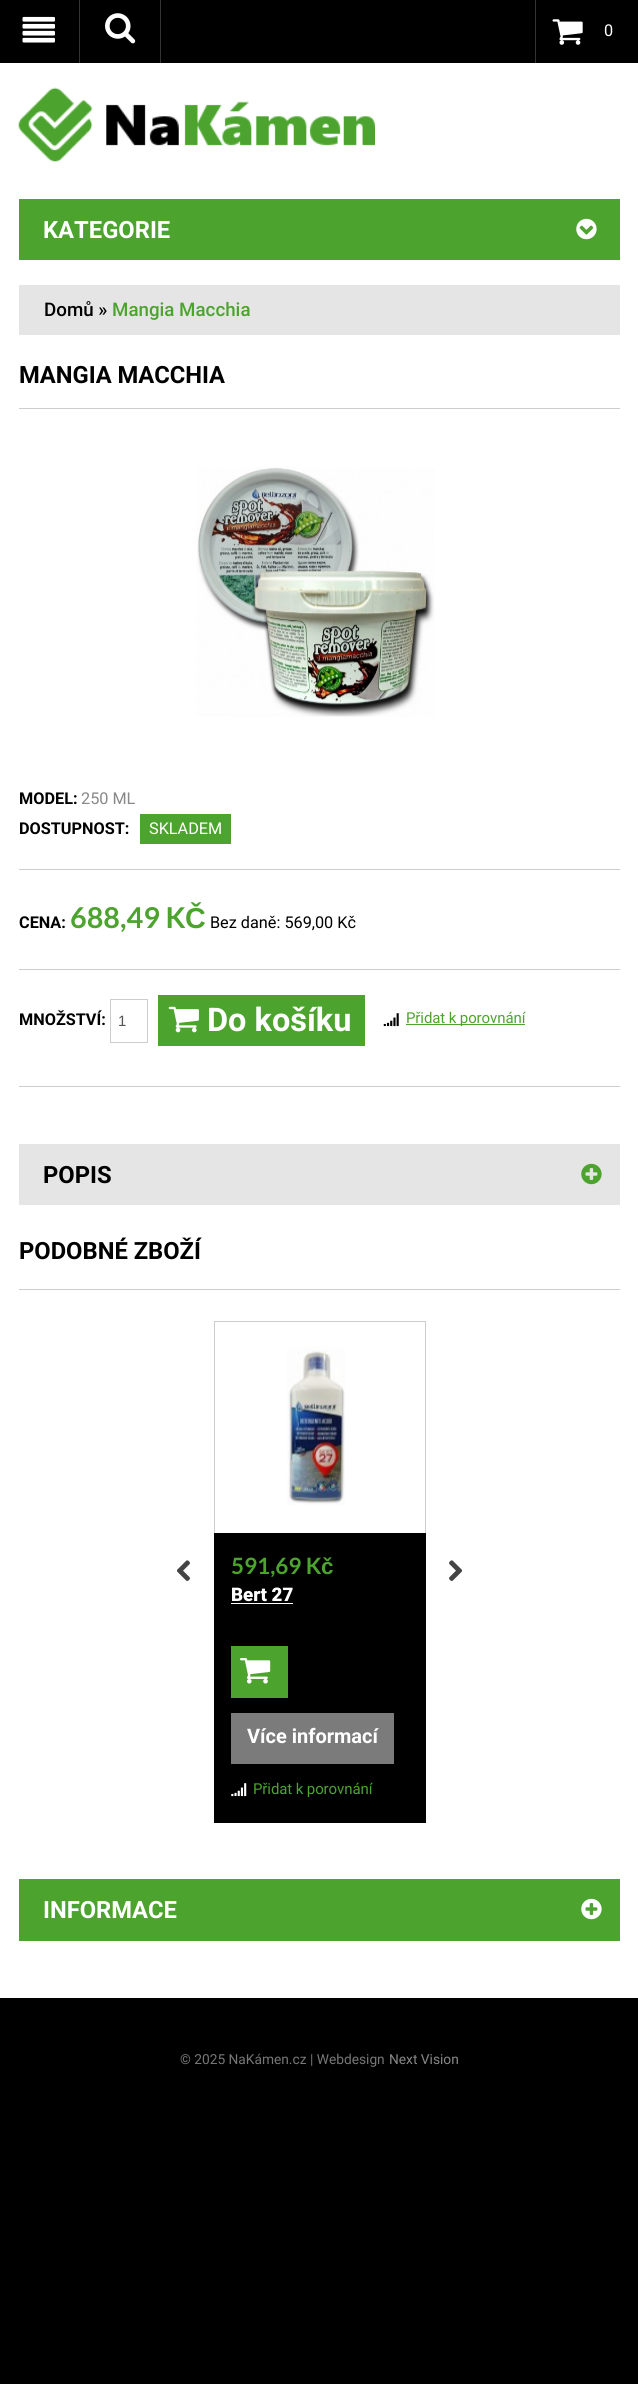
import math
import cairocffi as cairo

surface = cairo.ImageSurface(cairo.FORMAT_RGB24, 638, 2384)
ctx = cairo.Context(surface)
options = cairo.FontOptions()
options.set_hint_metrics(cairo.HINT_METRICS_OFF)
options.set_hint_style(cairo.HINT_STYLE_NONE)
ctx.set_font_options(options)
ctx.set_miter_limit(4)


def rgb(r, g, b):
    ctx.set_source_rgb(r / 255, g / 255, b / 255)


def face(family, size, italic, bold):
    ctx.select_font_face(family, cairo.FONT_SLANT_ITALIC if italic else cairo.FONT_SLANT_NORMAL, cairo.FONT_WEIGHT_BOLD if bold else cairo.FONT_WEIGHT_NORMAL)
    ctx.set_font_size(size)


def label(x, y, s):
    ctx.move_to(x, y)
    ctx.show_text(s)


def tracked(x, y, s, letter, word):
    ctx.move_to(x, y)
    for ch in s:
        ctx.show_text(ch)
        ctx.rel_move_to(letter + word * (ch == ' '), 0)


def rect(x, y, w, h):
    ctx.rectangle(x, y, w, h)
    ctx.fill()


def image(path, x, y, w, h):
    ctx.save()
    ctx.set_source_surface(cairo.ImageSurface.create_from_png(path), x, y)
    ctx.rectangle(x, y, w, h)
    ctx.fill()
    ctx.restore()


rgb(0, 0, 0)
ctx.paint()
rgb(255, 255, 255)
rect(0, 63, 638, 1935)
rgb(51, 51, 51)
rect(79, 0, 1, 63)
image('image0.png', 22, 16, 33, 27)
rect(160, 0, 1, 63)
image('image1.png', 105, 13, 31, 31)
rect(535, 0, 1, 63)
image('image2.png', 552, 19, 31, 26)
face('Roboto', 16.25, 0, 0)
rgb(255, 255, 255)
label(604, 36, '0')
image('image3.png', 18, 87, 357, 75)
rgb(76, 164, 47)
rect(19, 199, 601, 61)
face('Roboto', 23.75, 0, 1)
rgb(255, 255, 255)
label(43, 238, 'KATEGORIE')
image('image4.png', 576, 218, 21, 22)
rgb(229, 229, 229)
rect(19, 285, 601, 50)
face('Roboto Medium', 18.75, 0, 0)
rgb(0, 0, 0)
label(44, 316, 'Domů »')
rgb(76, 164, 47)
label(112, 316, 'Mangia Macchia')
rgb(205, 205, 205)
rect(19, 408, 601, 1)
face('Roboto', 23.75, 0, 1)
rgb(0, 0, 0)
label(19, 383, 'MANGIA MACCHIA')
image('image5.png', 196, 467, 239, 250)
face('Roboto', 16.25, 0, 1)
label(19, 804, 'MODEL:')
face('Roboto', 16.25, 0, 0)
rgb(136, 136, 136)
label(81, 804, '250 ML')
face('Roboto', 16.25, 0, 1)
rgb(0, 0, 0)
label(19, 834, 'DOSTUPNOST:')
rgb(76, 164, 47)
rect(140, 814, 91, 30)
face('Roboto', 16.25, 0, 0)
rgb(255, 255, 255)
label(149, 834, 'SKLADEM')
rgb(205, 205, 205)
rect(19, 869, 601, 1)
rect(19, 969, 601, 1)
face('Roboto', 16.25, 0, 1)
rgb(0, 0, 0)
label(19, 928, 'CENA:')
face('Lato', 28.75, 0, 1)
rgb(76, 164, 47)
label(70, 928, '688,49 K')
face('Liberation Sans', 28.75, 0, 1)
label(185, 928, 'Č')
face('Roboto', 16.25, 0, 0)
rgb(0, 0, 0)
label(210, 928, 'Bez daně: 569,00 Kč')
rgb(205, 205, 205)
rect(19, 1086, 601, 1)
face('Roboto', 16.25, 0, 1)
rgb(0, 0, 0)
label(19, 1025, 'MNOŽSTVÍ:')
ctx.rectangle(110.5, 999.5, 37, 43)
rgb(205, 205, 205)
ctx.set_line_width(1)
ctx.stroke()
face('Liberation Sans', 15, 0, 0)
rgb(85, 85, 85)
label(118, 1026, '1')
rgb(76, 164, 47)
rect(158, 995, 207, 51)
image('image6.png', 168, 1006, 31, 27)
face('Roboto', 32.5, 0, 1)
rgb(255, 255, 255)
label(207, 1031, 'Do košíku')
image('image7.png', 383, 1013, 16, 14)
rgb(76, 164, 47)
rect(406, 1024, 119, 1)
face('Roboto', 15, 0, 0)
tracked(406, 1023, 'Přidat k porovnání', -0.1, 0)
rgb(229, 229, 229)
rect(19, 1144, 601, 61)
face('Roboto', 23.75, 0, 1)
rgb(0, 0, 0)
label(43, 1183, 'POPIS')
image('image8.png', 581, 1163, 21, 22)
rgb(205, 205, 205)
rect(19, 1289, 601, 1)
rgb(0, 0, 0)
label(19, 1259, 'PODOBNÉ ZBOŽÍ')
rgb(205, 205, 205)
rect(214, 1321, 212, 1)
rect(425, 1321, 1, 212)
rect(214, 1321, 1, 212)
image('image9.png', 287, 1346, 58, 159)
rgb(0, 0, 0)
rect(214, 1533, 212, 290)
face('Lato', 22.5, 0, 1)
rgb(76, 164, 47)
label(231, 1574, '591,69 K')
face('Liberation Sans', 22.5, 0, 1)
label(321, 1574, 'č')
face('Roboto Black', 18.75, 0, 0)
rgb(255, 255, 255)
label(231, 1601, 'Bert 27')
rect(231, 1603, 62, 1)
rgb(76, 164, 47)
rect(231, 1646, 57, 52)
image('image10.png', 240, 1658, 31, 26)
rgb(123, 123, 123)
rect(231, 1713, 163, 51)
face('Roboto', 20, 0, 1)
rgb(255, 255, 255)
label(247, 1743, 'Více informací')
image('image11.png', 231, 1783, 16, 14)
face('Roboto', 15, 0, 0)
rgb(76, 164, 47)
tracked(253, 1794, 'Přidat k porovnání', -0.1, 0)
image('image12.png', 177, 1560, 13, 21)
image('image13.png', 449, 1560, 14, 21)
rect(19, 1879, 601, 62)
face('Roboto', 23.75, 0, 1)
rgb(255, 255, 255)
label(43, 1918, 'INFORMACE')
image('image14.png', 581, 1898, 21, 22)
face('Roboto', 13.75, 0, 0)
rgb(119, 119, 119)
label(180, 2064, '© 2025 NaKámen.cz | Webdesign')
rgb(136, 136, 136)
label(389, 2064, 'Next Vision')
surface.write_to_png('render.png')
